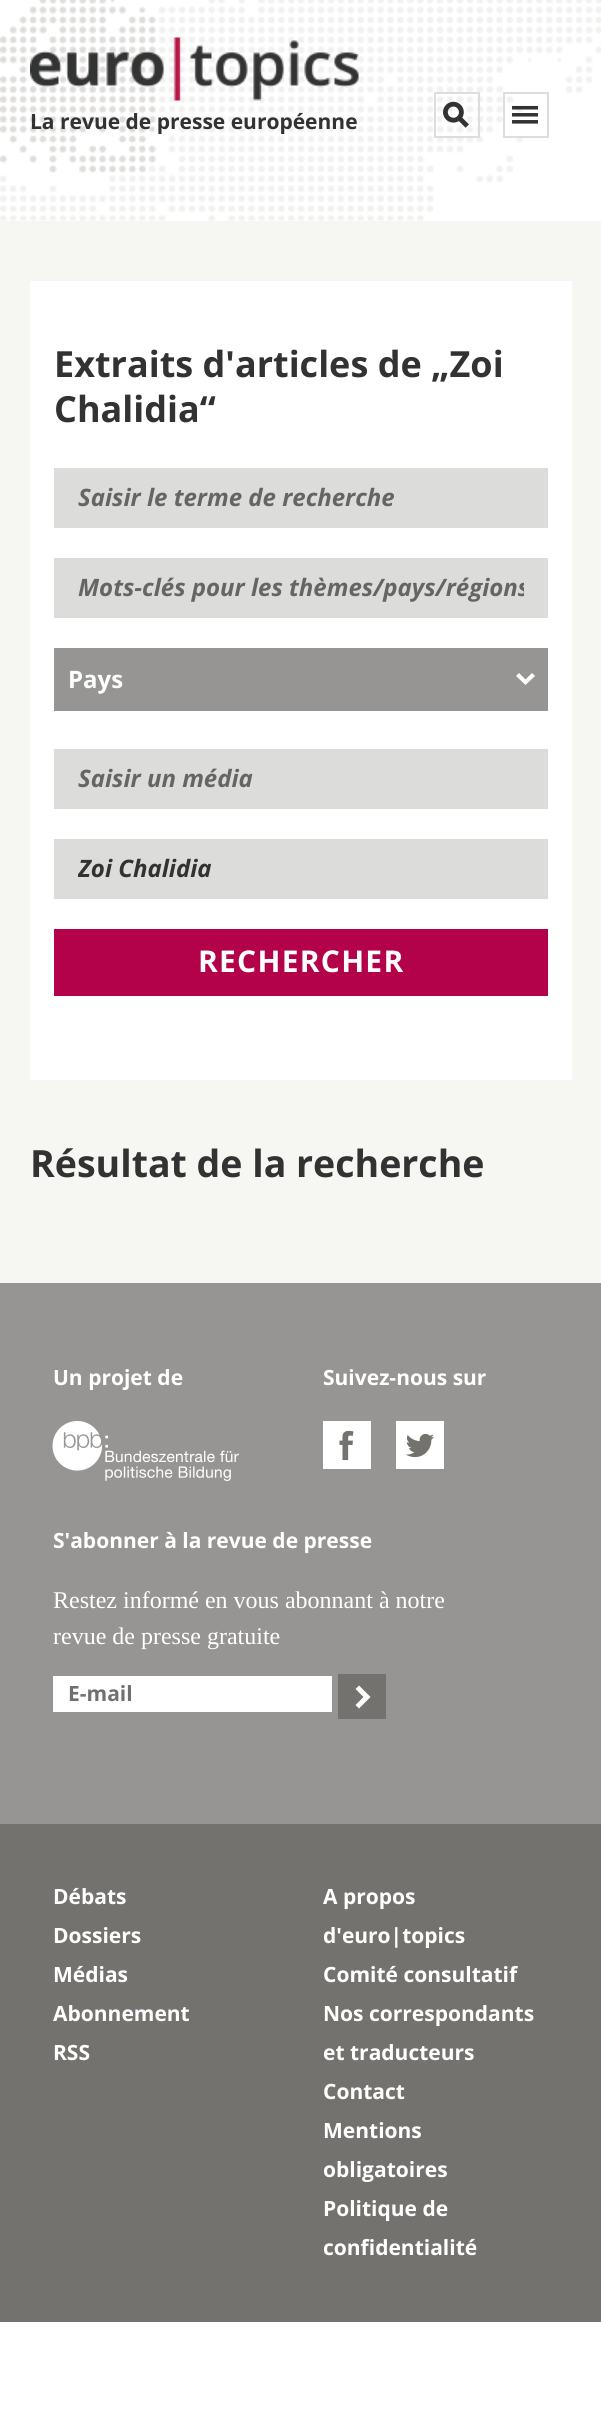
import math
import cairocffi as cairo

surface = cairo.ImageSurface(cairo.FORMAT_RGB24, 601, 2434)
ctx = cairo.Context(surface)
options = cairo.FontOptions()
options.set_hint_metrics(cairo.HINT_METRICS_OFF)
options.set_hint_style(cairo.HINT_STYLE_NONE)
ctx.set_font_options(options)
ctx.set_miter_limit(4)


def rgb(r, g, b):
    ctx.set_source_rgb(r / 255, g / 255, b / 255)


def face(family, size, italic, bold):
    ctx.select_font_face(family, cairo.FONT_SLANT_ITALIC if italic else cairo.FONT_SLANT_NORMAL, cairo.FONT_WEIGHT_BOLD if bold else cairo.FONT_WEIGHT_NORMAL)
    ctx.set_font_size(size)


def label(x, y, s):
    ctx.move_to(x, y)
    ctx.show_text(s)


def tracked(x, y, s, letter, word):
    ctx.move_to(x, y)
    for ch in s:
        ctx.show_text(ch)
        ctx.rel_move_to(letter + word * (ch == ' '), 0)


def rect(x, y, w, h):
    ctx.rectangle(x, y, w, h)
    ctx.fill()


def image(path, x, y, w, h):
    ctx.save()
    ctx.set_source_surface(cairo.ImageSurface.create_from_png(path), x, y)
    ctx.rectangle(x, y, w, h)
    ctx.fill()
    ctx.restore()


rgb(255, 255, 255)
ctx.paint()
image('image0.png', 0, 0, 601, 221)
image('image1.png', 30, 37, 329, 64)
face('Open Sans', 21, 0, 1)
rgb(50, 50, 50)
label(30, 129, 'La revue de presse européenne')
ctx.rectangle(435, 93, 44, 44)
rgb(221, 221, 221)
ctx.stroke()
image('image2.png', 443, 101, 26, 27)
ctx.rectangle(504, 93, 44, 44)
ctx.stroke()
image('image3.png', 512, 105, 26, 19)
rgb(246, 246, 243)
rect(0, 221, 601, 1062)
rgb(255, 255, 255)
rect(30, 281, 542, 799)
face('Open Sans', 36, 0, 1)
rgb(50, 50, 50)
label(54, 377, 'Extraits d\'articles de „Zoi')
label(54, 422, 'Chalidia“')
rgb(220, 220, 218)
rect(54, 468, 494, 60)
face('Open Sans', 24, 1, 1)
rgb(101, 101, 100)
label(78, 506, 'Saisir le terme de recherche')
rgb(220, 220, 218)
rect(54, 558, 494, 60)
ctx.save()
ctx.rectangle(78, 572, 446, 33)
ctx.clip()
rgb(101, 101, 100)
label(78, 596, 'Mots-clés pour les thèmes/pays/régions')
ctx.restore()
rgb(150, 149, 148)
rect(54, 648, 494, 63)
face('Open Sans', 24, 0, 1)
rgb(255, 255, 255)
label(68, 688, 'Pays')
ctx.new_path()
ctx.move_to(525.5, 685)
ctx.line_to(516, 676)
ctx.line_to(519, 673)
ctx.line_to(525.5, 679.5)
ctx.line_to(532, 673)
ctx.line_to(535, 676)
ctx.close_path()
ctx.fill()
rgb(220, 220, 218)
rect(54, 749, 494, 60)
face('Open Sans', 24, 1, 1)
rgb(101, 101, 100)
label(78, 787, 'Saisir un média')
rgb(220, 220, 218)
rect(54, 839, 494, 60)
ctx.save()
ctx.rectangle(78, 851, 446, 36)
ctx.clip()
rgb(50, 50, 50)
label(78, 877, 'Zoi Chalidia')
ctx.restore()
rgb(179, 2, 73)
rect(54, 929, 494, 67)
face('Open Sans', 30, 0, 1)
rgb(255, 255, 255)
tracked(198, 972, 'RECHERCHER', 1.25, 0)
face('Open Sans', 37.5, 0, 1)
rgb(50, 50, 50)
label(30, 1177, 'Résultat de la recherche')
rgb(150, 149, 148)
rect(0, 1283, 601, 541)
face('Open Sans', 21, 0, 1)
rgb(255, 255, 255)
label(53, 1385, 'Un projet de')
image('image4.png', 52, 1421, 187, 60)
label(323, 1385, 'Suivez-nous sur')
rect(323, 1421, 48, 48)
image('image5.png', 339, 1430, 15, 31)
rect(396, 1421, 48, 48)
image('image6.png', 406, 1433, 29, 25)
label(53, 1548, 'S\'abonner à la revue de presse')
face('Liberation Serif', 24, 0, 0)
label(53, 1608, 'Restez informé en vous abonnant à notre')
label(53, 1644, 'revue de presse gratuite')
rect(53, 1676, 279, 36)
face('Open Sans', 21, 0, 1)
rgb(112, 112, 112)
label(68, 1701, 'E-mail')
rgb(115, 114, 110)
rect(338, 1674, 48, 45)
rgb(255, 255, 255)
ctx.new_path()
ctx.move_to(359, 1708.5)
ctx.line_to(355.5, 1705)
ctx.line_to(363.5, 1697)
ctx.line_to(355.5, 1689)
ctx.line_to(359, 1685.5)
ctx.line_to(370.5, 1697)
ctx.close_path()
ctx.fill()
rgb(115, 114, 110)
rect(0, 1824, 601, 498)
rgb(255, 255, 255)
label(53, 1904, 'Débats')
label(53, 1943, 'Dossiers')
label(53, 1982, 'Médias')
label(53, 2021, 'Abonnement')
label(53, 2060, 'RSS')
label(323, 1904, 'A propos')
label(323, 1943, 'd\'euro|topics')
label(323, 1982, 'Comité consultatif')
label(323, 2021, 'Nos correspondants')
label(323, 2060, 'et traducteurs')
label(323, 2099, 'Contact')
label(323, 2138, 'Mentions')
label(323, 2177, 'obligatoires')
label(323, 2216, 'Politique de')
label(323, 2255, 'confidentialité')
surface.write_to_png('render.png')
